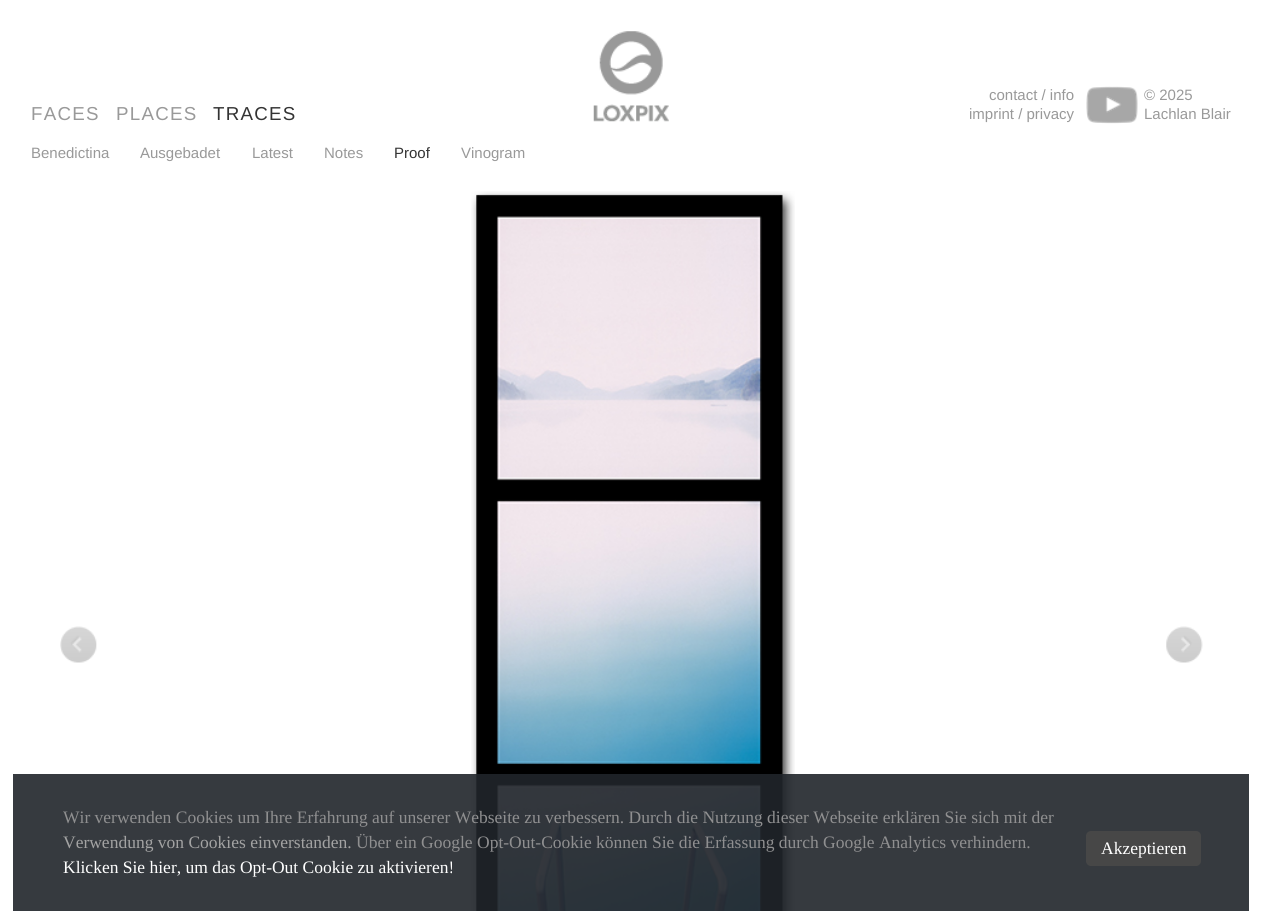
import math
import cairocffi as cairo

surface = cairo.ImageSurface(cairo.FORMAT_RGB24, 1261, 911)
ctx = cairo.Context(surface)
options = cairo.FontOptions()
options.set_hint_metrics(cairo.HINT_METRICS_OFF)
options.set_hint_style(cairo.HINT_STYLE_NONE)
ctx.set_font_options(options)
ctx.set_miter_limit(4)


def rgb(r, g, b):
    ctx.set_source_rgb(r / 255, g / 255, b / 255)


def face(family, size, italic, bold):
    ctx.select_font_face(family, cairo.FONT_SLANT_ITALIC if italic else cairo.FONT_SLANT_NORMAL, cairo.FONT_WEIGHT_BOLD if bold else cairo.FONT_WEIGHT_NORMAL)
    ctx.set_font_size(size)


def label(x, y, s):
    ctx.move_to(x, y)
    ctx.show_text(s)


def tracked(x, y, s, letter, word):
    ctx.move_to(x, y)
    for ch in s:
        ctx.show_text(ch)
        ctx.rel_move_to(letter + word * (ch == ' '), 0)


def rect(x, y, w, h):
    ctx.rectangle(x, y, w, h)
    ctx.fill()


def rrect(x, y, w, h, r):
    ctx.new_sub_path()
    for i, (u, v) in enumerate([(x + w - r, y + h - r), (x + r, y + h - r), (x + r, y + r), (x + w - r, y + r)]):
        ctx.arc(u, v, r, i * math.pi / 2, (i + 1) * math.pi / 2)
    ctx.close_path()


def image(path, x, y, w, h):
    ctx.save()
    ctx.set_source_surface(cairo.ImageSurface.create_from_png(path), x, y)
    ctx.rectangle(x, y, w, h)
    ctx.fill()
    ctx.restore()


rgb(255, 255, 255)
ctx.paint()
face('Liberation Sans', 18.75, 0, 0)
rgb(153, 153, 153)
tracked(31, 120, 'FACES', 1.25, 0)
tracked(116, 120, 'PLACES', 1.25, 0)
rgb(51, 51, 51)
tracked(213, 120, 'TRACES', 1.25, 0)
image('image0.png', 593, 31, 76, 91)
face('Liberation Sans', 15, 0, 0)
rgb(153, 153, 153)
label(989, 100, 'contact / info')
label(969, 119, 'imprint / privacy')
image('image1.png', 1086, 86, 52, 38)
label(1144, 100, '© 2025')
label(1144, 119, 'Lachlan Blair')
label(31, 158, 'Benedictina')
label(140, 158, 'Ausgebadet')
label(252, 158, 'Latest')
label(324, 158, 'Notes')
rgb(51, 51, 51)
label(394, 158, 'Proof')
rgb(153, 153, 153)
label(461, 158, 'Vinogram')
image('image2.png', 471, 191, 324, 720)
image('image3.png', 60, 626, 37, 37)
image('image4.png', 1166, 626, 37, 37)
ctx.set_source_rgba(0.129, 0.145, 0.169, 0.9)
rect(13, 774, 1236, 137)
face('Liberation Serif', 17.5, 0, 0)
rgb(143, 143, 144)
label(63, 823, 'Wir verwenden Cookies um Ihre Erfahrung auf unserer Webseite zu verbessern. Durch die Nutzung dieser Webseite erklären Sie sich mit der')
rgb(163, 163, 163)
label(63, 848, 'Verwendung von Cookies einverstanden.')
rgb(143, 143, 144)
label(356, 848, 'Über ein Google Opt-Out-Cookie können Sie die Erfassung durch Google Analytics verhindern.')
rgb(255, 255, 255)
label(63, 873, 'Klicken Sie hier, um das Opt-Out Cookie zu aktivieren!')
rgb(71, 71, 71)
rrect(1086, 831, 115, 35, 5)
ctx.fill()
rgb(255, 255, 255)
label(1101, 854, 'Akzeptieren')
surface.write_to_png('render.png')
